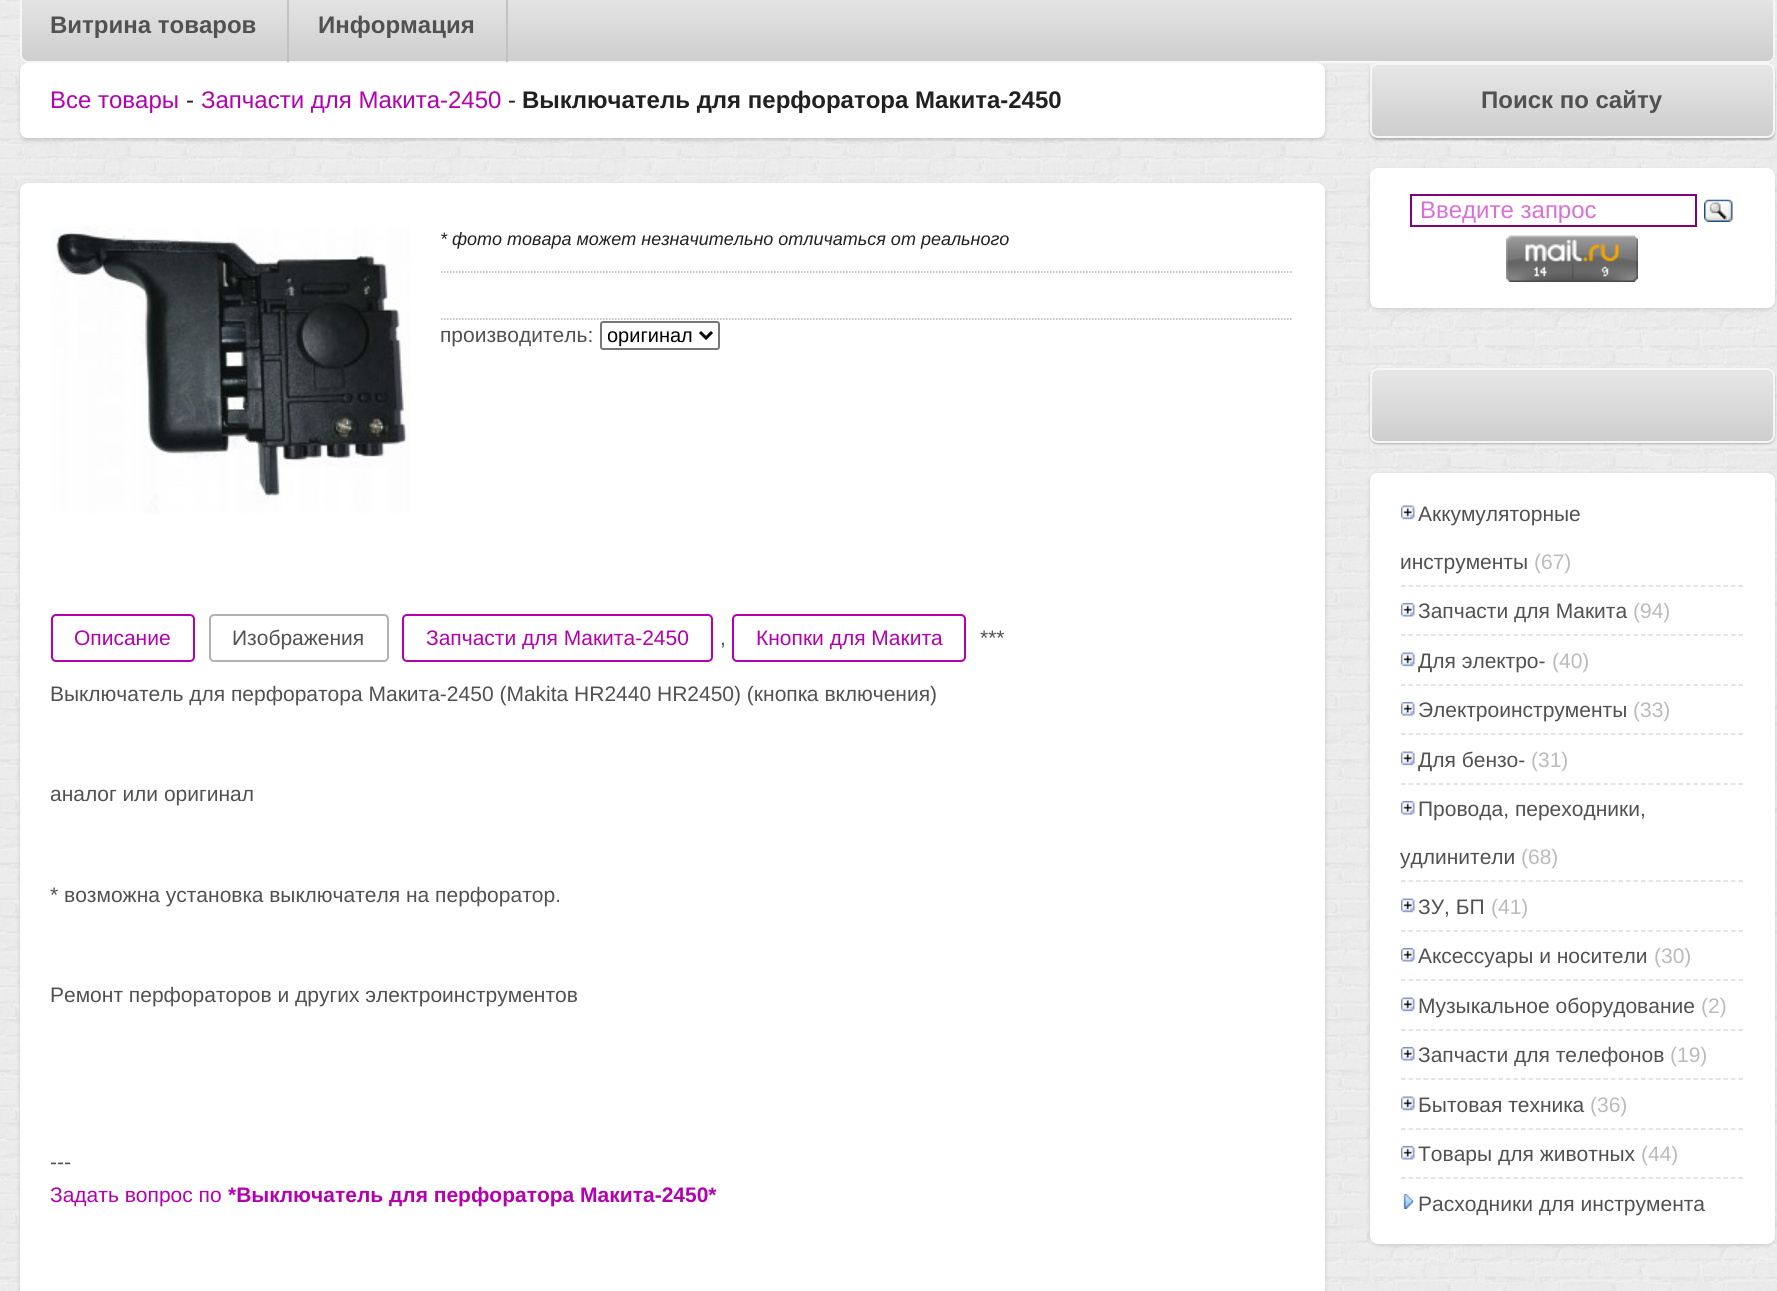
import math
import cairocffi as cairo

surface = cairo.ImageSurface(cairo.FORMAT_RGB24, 1777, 1291)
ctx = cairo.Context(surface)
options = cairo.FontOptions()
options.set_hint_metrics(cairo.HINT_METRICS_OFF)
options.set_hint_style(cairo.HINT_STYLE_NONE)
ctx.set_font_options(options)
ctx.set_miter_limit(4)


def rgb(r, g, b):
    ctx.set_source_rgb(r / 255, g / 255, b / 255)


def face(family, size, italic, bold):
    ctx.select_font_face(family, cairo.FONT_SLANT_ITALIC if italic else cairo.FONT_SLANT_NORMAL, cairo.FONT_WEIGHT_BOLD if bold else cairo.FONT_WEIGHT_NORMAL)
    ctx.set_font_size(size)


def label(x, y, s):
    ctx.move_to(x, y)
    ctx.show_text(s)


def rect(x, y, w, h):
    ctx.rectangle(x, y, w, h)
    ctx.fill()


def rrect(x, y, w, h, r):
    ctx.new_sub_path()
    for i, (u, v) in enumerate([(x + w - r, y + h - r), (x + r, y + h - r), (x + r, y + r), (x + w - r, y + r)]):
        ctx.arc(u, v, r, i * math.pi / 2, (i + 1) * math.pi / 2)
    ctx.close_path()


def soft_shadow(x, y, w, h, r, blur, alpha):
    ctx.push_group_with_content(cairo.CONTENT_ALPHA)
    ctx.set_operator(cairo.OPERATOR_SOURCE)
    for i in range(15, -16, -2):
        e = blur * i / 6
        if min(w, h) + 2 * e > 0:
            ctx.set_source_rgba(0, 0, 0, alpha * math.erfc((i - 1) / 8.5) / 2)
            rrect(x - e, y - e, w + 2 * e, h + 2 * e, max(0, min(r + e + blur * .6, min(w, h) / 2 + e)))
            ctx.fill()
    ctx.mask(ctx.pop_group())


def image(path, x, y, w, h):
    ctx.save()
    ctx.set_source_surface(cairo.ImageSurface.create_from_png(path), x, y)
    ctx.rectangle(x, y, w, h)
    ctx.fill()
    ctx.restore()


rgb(255, 255, 255)
ctx.paint()
image('image0.png', 0, 0, 1777, 1291)
rgb(0, 0, 0)
soft_shadow(20, 65, 1305, 75, 8, 2, 0.15)
soft_shadow(1370, 65, 405, 75, 8, 1, 0.25)
ctx.save()
rrect(20, -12, 1755, 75, 8)
ctx.clip()
gradient = cairo.LinearGradient(897, -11, 897, 62)
gradient.add_color_stop_rgba(0, 0.906, 0.906, 0.906, 1)
gradient.add_color_stop_rgba(1, 0.808, 0.808, 0.808, 1)
ctx.set_source(gradient)
rect(20, 0, 1755, 62)
ctx.restore()
rrect(21, -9, 1753, 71, 7)
rgb(246, 246, 246)
ctx.stroke()
rgb(194, 194, 194)
rect(287, 0, 2, 62)
face('Liberation Sans', 24, 0, 1)
rgb(81, 81, 81)
label(50, 33, 'Витрина товаров')
rgb(194, 194, 194)
rect(506, 0, 2, 62)
rgb(81, 81, 81)
label(318, 33, 'Информация')
rgb(255, 255, 255)
rrect(21, 64, 1303, 73, 7)
ctx.fill_preserve()
ctx.stroke()
face('Liberation Sans', 24, 0, 0)
rgb(181, 0, 175)
label(50, 108, 'Все товары')
rgb(33, 33, 33)
label(186, 108, '-')
rgb(181, 0, 175)
label(201, 108, 'Запчасти для Макита-2450')
rgb(33, 33, 33)
label(508, 108, '-')
face('Liberation Sans', 24, 0, 1)
label(522, 108, 'Выключатель для перфоратора Макита-2450')
rgb(0, 0, 0)
soft_shadow(20, 185, 1305, 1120, 8, 2, 0.15)
rgb(255, 255, 255)
rrect(21, 184, 1303, 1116, 7)
ctx.fill_preserve()
ctx.stroke()
image('image1.png', 51, 226, 360, 288)
ctx.new_path()
ctx.move_to(441, 272)
ctx.line_to(1293, 272)
rgb(178, 178, 178)
ctx.set_line_width(1.5)
ctx.set_dash([1.5, 1.5])
ctx.stroke()
face('Liberation Sans', 18, 1, 0)
rgb(33, 33, 33)
label(440, 245, '* фото товара может незначительно отличаться от реального')
ctx.new_path()
ctx.move_to(441, 319)
ctx.line_to(1293, 319)
rgb(178, 178, 178)
ctx.stroke()
face('Liberation Sans', 21, 0, 0)
rgb(81, 81, 81)
label(440, 342, 'производитель:')
rrect(601, 322, 118, 27, 2)
rgb(118, 118, 118)
ctx.set_line_width(2)
ctx.set_dash([])
ctx.stroke()
ctx.new_path()
ctx.move_to(700, 332)
ctx.line_to(706, 338)
ctx.line_to(712, 332)
rgb(0, 0, 0)
ctx.set_line_width(3)
ctx.stroke()
ctx.save()
ctx.rectangle(608, 323, 87, 25)
ctx.clip()
face('Liberation Sans', 20, 0, 0)
label(607, 342, 'оригинал')
ctx.restore()
rrect(52, 615, 142, 46, 4)
rgb(181, 0, 175)
ctx.set_line_width(2)
ctx.stroke()
label(74, 645, 'Описание')
rrect(210, 615, 178, 46, 4)
rgb(178, 178, 178)
ctx.stroke()
rgb(81, 81, 81)
label(232, 645, 'Изображения')
rrect(403, 615, 309, 46, 4)
rgb(181, 0, 175)
ctx.stroke()
label(426, 645, 'Запчасти для Макита-2450')
rrect(733, 615, 232, 46, 4)
ctx.stroke()
label(756, 645, 'Кнопки для Макита')
rgb(81, 81, 81)
label(980, 645, '***')
label(720, 645, ',')
label(50, 701, 'Выключатель для перфоратора Макита-2450 (Makita HR2440 HR2450) (кнопка включения)')
label(50, 801, 'аналог или оригинал')
label(50, 902, '* возможна установка выключателя на перфоратор.')
label(50, 1002, 'Ремонт перфораторов и других электроинструментов')
label(50, 1169, '---')
rgb(181, 0, 175)
label(50, 1202, 'Задать вопрос по')
face('Liberation Sans', 21, 0, 1)
label(228, 1202, '*Выключатель для перфоратора Макита-2450*')
ctx.save()
rrect(1370, 63, 405, 75, 8)
ctx.clip()
gradient = cairo.LinearGradient(1572, 64, 1572, 137)
gradient.add_color_stop_rgba(0, 0.906, 0.906, 0.906, 1)
gradient.add_color_stop_rgba(1, 0.808, 0.808, 0.808, 1)
ctx.set_source(gradient)
rect(1370, 65, 405, 72)
ctx.restore()
rrect(1371, 64, 403, 73, 7)
rgb(246, 246, 246)
ctx.stroke()
face('Liberation Sans', 24, 0, 1)
rgb(81, 81, 81)
label(1481, 108, 'Поиск по сайту')
rgb(0, 0, 0)
soft_shadow(1370, 170, 405, 139, 8, 2, 0.15)
rgb(255, 255, 255)
rrect(1371, 169, 403, 138, 7)
ctx.fill_preserve()
ctx.stroke()
ctx.rectangle(1411, 195, 285, 31)
rgb(128, 0, 128)
ctx.stroke()
face('Liberation Sans', 24, 0, 0)
rgb(218, 112, 214)
label(1420, 218, 'Введите запрос')
image('image2.png', 1704, 199, 29, 23)
image('image3.png', 1506, 235, 132, 47)
rgb(0, 0, 0)
soft_shadow(1370, 369, 405, 75, 8, 1, 0.25)
ctx.save()
rrect(1370, 368, 405, 75, 8)
ctx.clip()
gradient = cairo.LinearGradient(1572, 369, 1572, 441)
gradient.add_color_stop_rgba(0, 0.906, 0.906, 0.906, 1)
gradient.add_color_stop_rgba(1, 0.808, 0.808, 0.808, 1)
ctx.set_source(gradient)
rect(1370, 369, 405, 72)
ctx.restore()
rrect(1371, 369, 403, 73, 7)
rgb(246, 246, 246)
ctx.stroke()
rgb(0, 0, 0)
soft_shadow(1370, 474, 405, 771, 8, 2, 0.15)
rgb(255, 255, 255)
rrect(1371, 474, 403, 769, 7)
ctx.fill_preserve()
ctx.stroke()
image('image4.png', 1401, 505, 14, 15)
face('Liberation Sans', 21, 0, 0)
rgb(81, 81, 81)
label(1418, 521, 'Аккумуляторные')
label(1400, 569, 'инструменты')
rgb(187, 187, 187)
label(1534, 569, '(67)')
ctx.new_path()
ctx.move_to(1401, 586)
ctx.line_to(1743, 586)
rgb(220, 220, 220)
ctx.set_line_width(1.5)
ctx.set_dash([4.5, 3])
ctx.stroke()
image('image5.png', 1401, 603, 14, 14)
rgb(81, 81, 81)
label(1418, 618, 'Запчасти для Макита')
rgb(187, 187, 187)
label(1633, 618, '(94)')
ctx.new_path()
ctx.move_to(1401, 635)
ctx.line_to(1743, 635)
rgb(220, 220, 220)
ctx.stroke()
image('image4.png', 1401, 652, 14, 15)
rgb(81, 81, 81)
label(1418, 668, 'Для электро-')
rgb(187, 187, 187)
label(1552, 668, '(40)')
ctx.new_path()
ctx.move_to(1401, 685)
ctx.line_to(1743, 685)
rgb(220, 220, 220)
ctx.stroke()
image('image5.png', 1401, 702, 14, 14)
rgb(81, 81, 81)
label(1418, 717, 'Электроинструменты')
rgb(187, 187, 187)
label(1633, 717, '(33)')
ctx.new_path()
ctx.move_to(1401, 734)
ctx.line_to(1743, 734)
rgb(220, 220, 220)
ctx.stroke()
image('image4.png', 1401, 751, 14, 15)
rgb(81, 81, 81)
label(1418, 767, 'Для бензо-')
rgb(187, 187, 187)
label(1531, 767, '(31)')
ctx.new_path()
ctx.move_to(1401, 784)
ctx.line_to(1743, 784)
rgb(220, 220, 220)
ctx.stroke()
image('image5.png', 1401, 801, 14, 14)
rgb(81, 81, 81)
label(1418, 816, 'Провода, переходники,')
label(1400, 864, 'удлинители')
rgb(187, 187, 187)
label(1521, 864, '(68)')
ctx.new_path()
ctx.move_to(1401, 881)
ctx.line_to(1743, 881)
rgb(220, 220, 220)
ctx.stroke()
image('image4.png', 1401, 898, 14, 15)
rgb(81, 81, 81)
label(1418, 914, 'ЗУ, БП')
rgb(187, 187, 187)
label(1491, 914, '(41)')
ctx.new_path()
ctx.move_to(1401, 931)
ctx.line_to(1743, 931)
rgb(220, 220, 220)
ctx.stroke()
image('image5.png', 1401, 948, 14, 14)
rgb(81, 81, 81)
label(1418, 963, 'Аксессуары и носители')
rgb(187, 187, 187)
label(1654, 963, '(30)')
ctx.new_path()
ctx.move_to(1401, 980)
ctx.line_to(1743, 980)
rgb(220, 220, 220)
ctx.stroke()
image('image4.png', 1401, 997, 14, 15)
rgb(81, 81, 81)
label(1418, 1013, 'Музыкальное оборудование')
rgb(187, 187, 187)
label(1701, 1013, '(2)')
ctx.new_path()
ctx.move_to(1401, 1030)
ctx.line_to(1743, 1030)
rgb(220, 220, 220)
ctx.stroke()
image('image5.png', 1401, 1047, 14, 14)
rgb(81, 81, 81)
label(1418, 1062, 'Запчасти для телефонов')
rgb(187, 187, 187)
label(1670, 1062, '(19)')
ctx.new_path()
ctx.move_to(1401, 1079)
ctx.line_to(1743, 1079)
rgb(220, 220, 220)
ctx.stroke()
image('image4.png', 1401, 1096, 14, 15)
rgb(81, 81, 81)
label(1418, 1112, 'Бытовая техника')
rgb(187, 187, 187)
label(1590, 1112, '(36)')
ctx.new_path()
ctx.move_to(1401, 1129)
ctx.line_to(1743, 1129)
rgb(220, 220, 220)
ctx.stroke()
image('image5.png', 1401, 1146, 14, 14)
rgb(81, 81, 81)
label(1418, 1161, 'Товары для животных')
rgb(187, 187, 187)
label(1641, 1161, '(44)')
ctx.new_path()
ctx.move_to(1401, 1178)
ctx.line_to(1743, 1178)
rgb(220, 220, 220)
ctx.stroke()
image('image6.png', 1403, 1194, 11, 15)
rgb(81, 81, 81)
label(1418, 1211, 'Расходники для инструмента')
surface.write_to_png('render.png')
